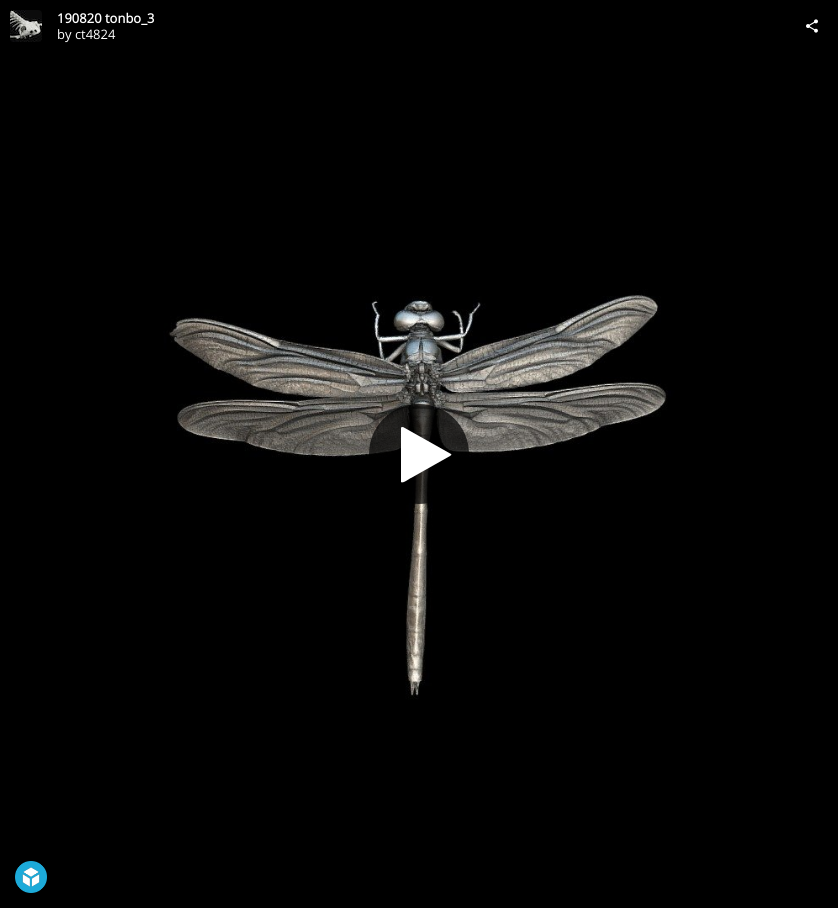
import math
import cairocffi as cairo

surface = cairo.ImageSurface(cairo.FORMAT_RGB24, 838, 908)
ctx = cairo.Context(surface)
options = cairo.FontOptions()
options.set_hint_metrics(cairo.HINT_METRICS_OFF)
options.set_hint_style(cairo.HINT_STYLE_NONE)
ctx.set_font_options(options)
ctx.set_miter_limit(4)


def rgb(r, g, b):
    ctx.set_source_rgb(r / 255, g / 255, b / 255)


def face(family, size, italic, bold):
    ctx.select_font_face(family, cairo.FONT_SLANT_ITALIC if italic else cairo.FONT_SLANT_NORMAL, cairo.FONT_WEIGHT_BOLD if bold else cairo.FONT_WEIGHT_NORMAL)
    ctx.set_font_size(size)


def label(x, y, s):
    ctx.move_to(x, y)
    ctx.show_text(s)


def image(path, x, y, w, h):
    ctx.save()
    ctx.set_source_surface(cairo.ImageSurface.create_from_png(path), x, y)
    ctx.rectangle(x, y, w, h)
    ctx.fill()
    ctx.restore()


rgb(255, 255, 255)
ctx.paint()
image('image0.png', 0, 0, 838, 908)
ctx.set_source_rgba(0, 0, 0, 0.7)
ctx.arc(419, 454, 50, 0, 2 * math.pi)
ctx.fill()
rgb(255, 255, 255)
ctx.new_path()
ctx.move_to(450, 456)
ctx.line_to(411, 478)
ctx.curve_to(410, 478, 403, 484, 401, 482)
ctx.line_to(401, 428)
ctx.curve_to(401, 427, 402, 427, 403, 427)
ctx.line_to(451, 454)
ctx.curve_to(452, 455, 451, 455, 450, 456)
ctx.close_path()
ctx.fill()
image('image1.png', 15, 861, 32, 32)
image('image2.png', 10, 10, 32, 32)
face('Open Sans', 13, 0, 1)
label(57, 23, '190820 tonbo_3')
face('Open Sans', 13, 0, 0)
label(57, 39, 'by ct4824')
image('image3.png', 806, 19, 12, 14)
surface.write_to_png('render.png')
